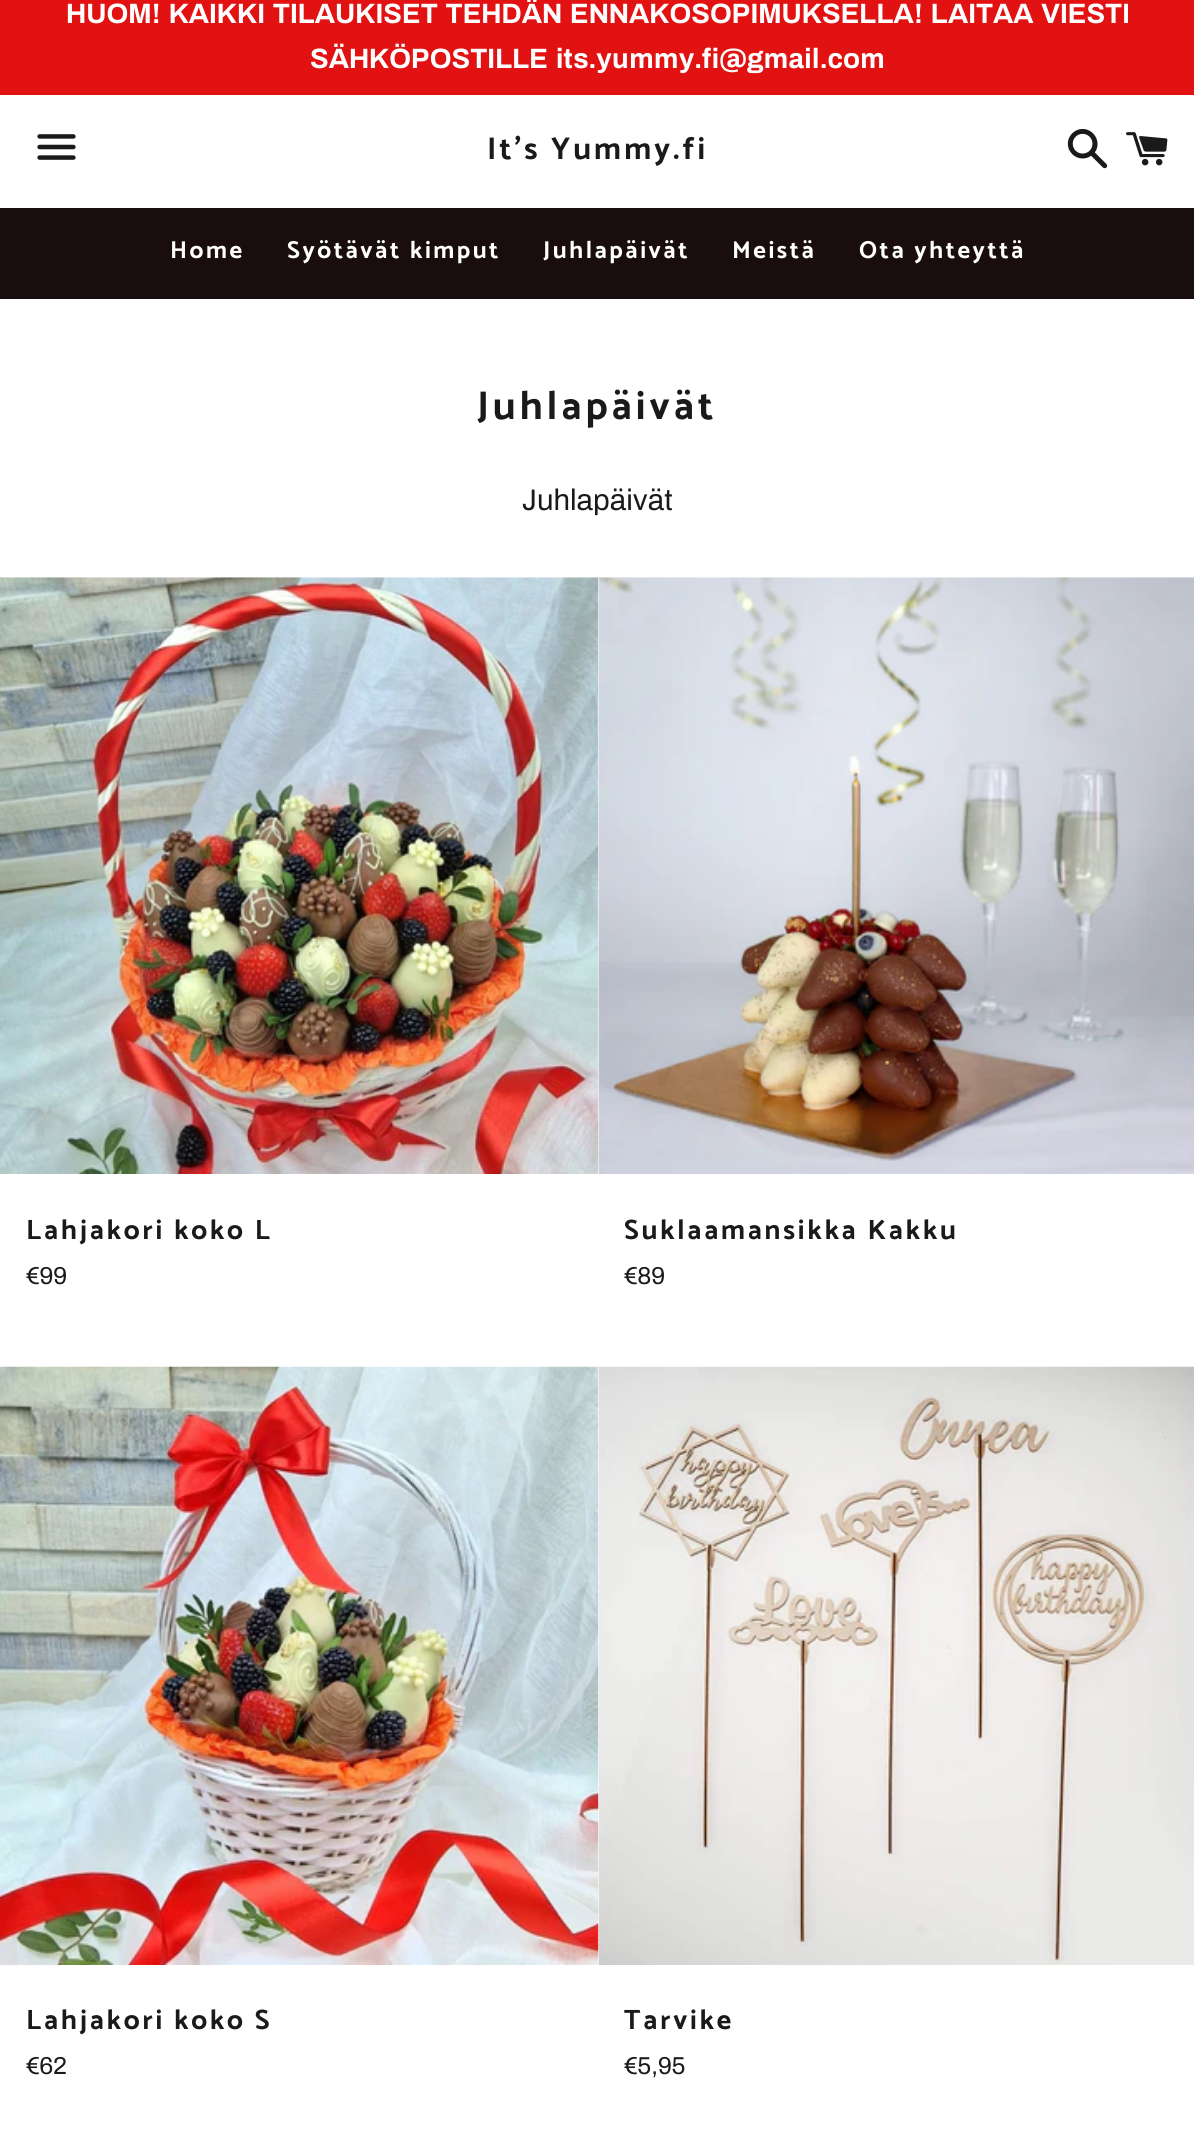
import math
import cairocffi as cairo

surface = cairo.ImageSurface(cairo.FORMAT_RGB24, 1194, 2153)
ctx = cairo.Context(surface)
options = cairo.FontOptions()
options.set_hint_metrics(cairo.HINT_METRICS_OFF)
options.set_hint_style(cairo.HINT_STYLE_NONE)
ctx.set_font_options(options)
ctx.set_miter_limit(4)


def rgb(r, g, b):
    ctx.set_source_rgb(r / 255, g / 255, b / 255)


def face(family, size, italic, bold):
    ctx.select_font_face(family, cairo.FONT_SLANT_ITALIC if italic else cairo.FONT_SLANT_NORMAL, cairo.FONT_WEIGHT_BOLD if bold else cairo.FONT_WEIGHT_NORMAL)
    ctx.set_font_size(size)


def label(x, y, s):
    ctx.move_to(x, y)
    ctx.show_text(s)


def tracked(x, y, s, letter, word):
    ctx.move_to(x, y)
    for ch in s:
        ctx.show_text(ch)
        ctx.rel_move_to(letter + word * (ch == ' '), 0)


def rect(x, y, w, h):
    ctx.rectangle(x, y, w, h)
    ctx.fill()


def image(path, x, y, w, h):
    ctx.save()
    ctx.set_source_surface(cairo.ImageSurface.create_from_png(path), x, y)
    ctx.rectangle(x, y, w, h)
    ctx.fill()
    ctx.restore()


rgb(255, 255, 255)
ctx.paint()
rgb(226, 18, 18)
rect(0, 0, 1194, 95)
face('Archivo', 28, 0, 1)
rgb(255, 255, 255)
label(66, 23, 'HUOM! KAIKKI TILAUKISET TEHDÄN ENNAKOSOPIMUKSELLA! LAITAA VIESTI')
label(310, 68, 'SÄHKÖPOSTILLE its.yummy.fi@gmail.com')
image('image0.png', 37, 134, 39, 26)
face('Catamaran', 31.5, 0, 1)
rgb(26, 26, 26)
tracked(487, 159, 'It\'s Yummy.fi', 3.1, 0)
image('image1.png', 1067, 128, 41, 41)
image('image2.png', 1126, 132, 42, 34)
rgb(25, 13, 13)
rect(0, 208, 1194, 91)
face('Catamaran', 24.5, 0, 1)
rgb(255, 255, 255)
tracked(170, 258, 'Home', 2.5, 0)
tracked(287, 258, 'Syötävät kimput', 2.5, 0)
tracked(543, 258, 'Juhlapäivät', 2.5, 0)
tracked(732, 258, 'Meistä', 2.5, 0)
tracked(859, 258, 'Ota yhteyttä', 2.5, 0)
face('Catamaran', 40.25, 0, 1)
rgb(26, 26, 26)
tracked(477, 419, 'Juhlapäivät', 4, 0)
face('Archivo', 29.75, 0, 0)
label(522, 510, 'Juhlapäivät')
image('image3.png', 0, 577, 599, 597)
face('Catamaran', 28, 0, 1)
tracked(26, 1239, 'Lahjakori koko L', 2.75, 0)
face('Archivo', 24.5, 0, 0)
label(26, 1284, '€99')
image('image4.png', 598, 577, 596, 597)
face('Catamaran', 28, 0, 1)
tracked(624, 1239, 'Suklaamansikka Kakku', 2.75, 0)
face('Archivo', 24.5, 0, 0)
label(624, 1284, '€89')
image('image5.png', 0, 1366, 599, 599)
face('Catamaran', 28, 0, 1)
tracked(26, 2029, 'Lahjakori koko S', 2.75, 0)
face('Archivo', 24.5, 0, 0)
label(26, 2074, '€62')
image('image6.png', 598, 1366, 596, 599)
face('Catamaran', 28, 0, 1)
tracked(624, 2029, 'Tarvike', 2.75, 0)
face('Archivo', 24.5, 0, 0)
label(624, 2074, '€5,95')
surface.write_to_png('render.png')
